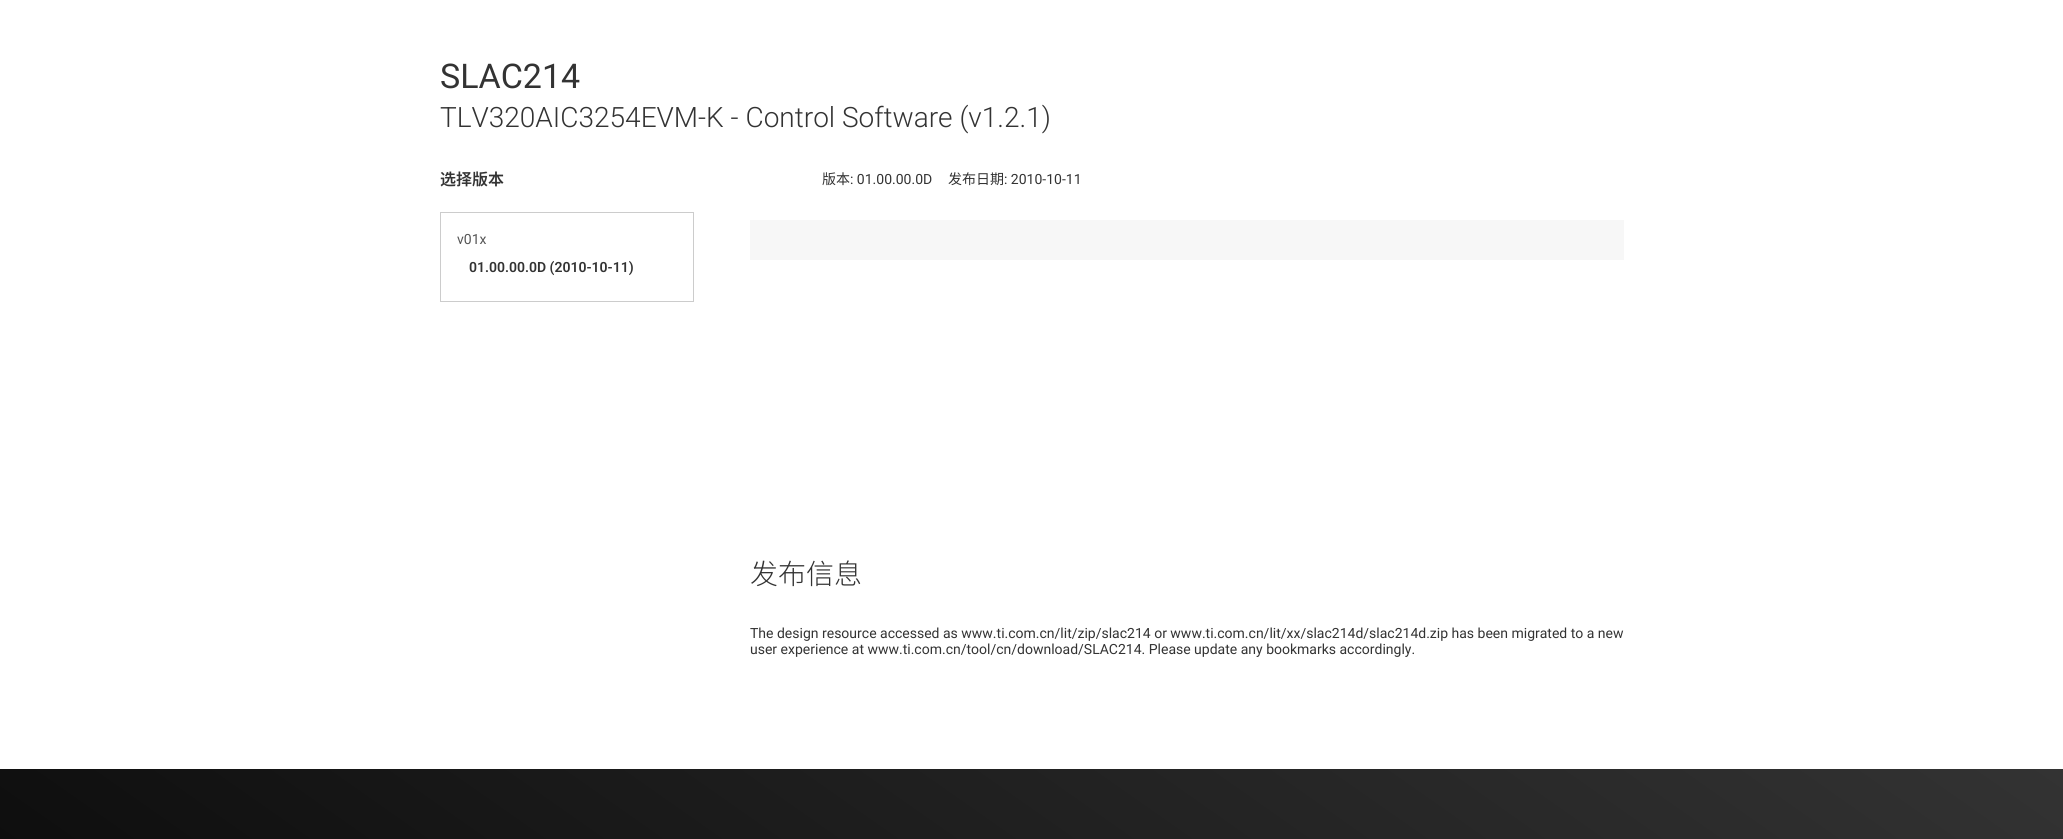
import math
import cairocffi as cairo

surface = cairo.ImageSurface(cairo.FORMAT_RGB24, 2063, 839)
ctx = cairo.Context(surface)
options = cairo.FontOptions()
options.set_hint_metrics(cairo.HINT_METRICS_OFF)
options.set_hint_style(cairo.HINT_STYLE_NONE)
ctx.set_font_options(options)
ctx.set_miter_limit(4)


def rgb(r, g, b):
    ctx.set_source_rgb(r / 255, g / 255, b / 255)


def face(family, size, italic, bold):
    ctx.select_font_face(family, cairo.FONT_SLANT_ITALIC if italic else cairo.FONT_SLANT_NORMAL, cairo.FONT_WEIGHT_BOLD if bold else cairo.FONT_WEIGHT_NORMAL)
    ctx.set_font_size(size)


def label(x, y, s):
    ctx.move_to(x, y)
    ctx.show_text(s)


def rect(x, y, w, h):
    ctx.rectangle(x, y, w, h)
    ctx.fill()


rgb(255, 255, 255)
ctx.paint()
face('Roboto', 34, 0, 0)
rgb(51, 51, 51)
label(440, 88, 'SLAC214')
face('Roboto Light', 28, 0, 0)
label(440, 127, 'TLV320AIC3254EVM-K - Control Software (v1.2.1)')
face('Noto Sans SC SemiBold', 16, 0, 0)
label(440, 185, '选择版本')
ctx.rectangle(440.5, 212.5, 253, 89)
rgb(204, 204, 204)
ctx.set_line_width(1)
ctx.stroke()
face('Roboto', 14, 0, 0)
rgb(85, 85, 85)
label(457, 244, 'v01x')
face('Roboto SemiBold', 14, 0, 0)
rgb(51, 51, 51)
label(469, 272, '01.00.00.0D (2010-10-11)')
face('Noto Sans SC', 14, 0, 0)
label(822, 184, '版本')
face('Roboto', 14, 0, 0)
label(850, 184, ': 01.00.00.0D')
face('Noto Sans SC', 14, 0, 0)
label(948, 184, '发布日期')
face('Roboto', 14, 0, 0)
label(1004, 184, ': 2010-10-11')
rgb(247, 247, 247)
rect(750, 220, 874, 40)
face('Noto Sans SC Light', 28, 0, 0)
rgb(51, 51, 51)
label(750, 584, '发布信息')
face('Roboto', 14, 0, 0)
label(750, 638, 'The design resource accessed as www.ti.com.cn/lit/zip/slac214 or www.ti.com.cn/lit/xx/slac214d/slac214d.zip has been migrated to a new')
label(750, 654, 'user experience at www.ti.com.cn/tool/cn/download/SLAC214. Please update any bookmarks accordingly.')
gradient = cairo.LinearGradient(538, 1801, 1525, 392)
gradient.add_color_stop_rgba(0, 0, 0, 0, 1)
gradient.add_color_stop_rgba(1, 0.2, 0.2, 0.2, 1)
ctx.set_source(gradient)
rect(0, 769, 2063, 70)
surface.write_to_png('render.png')
